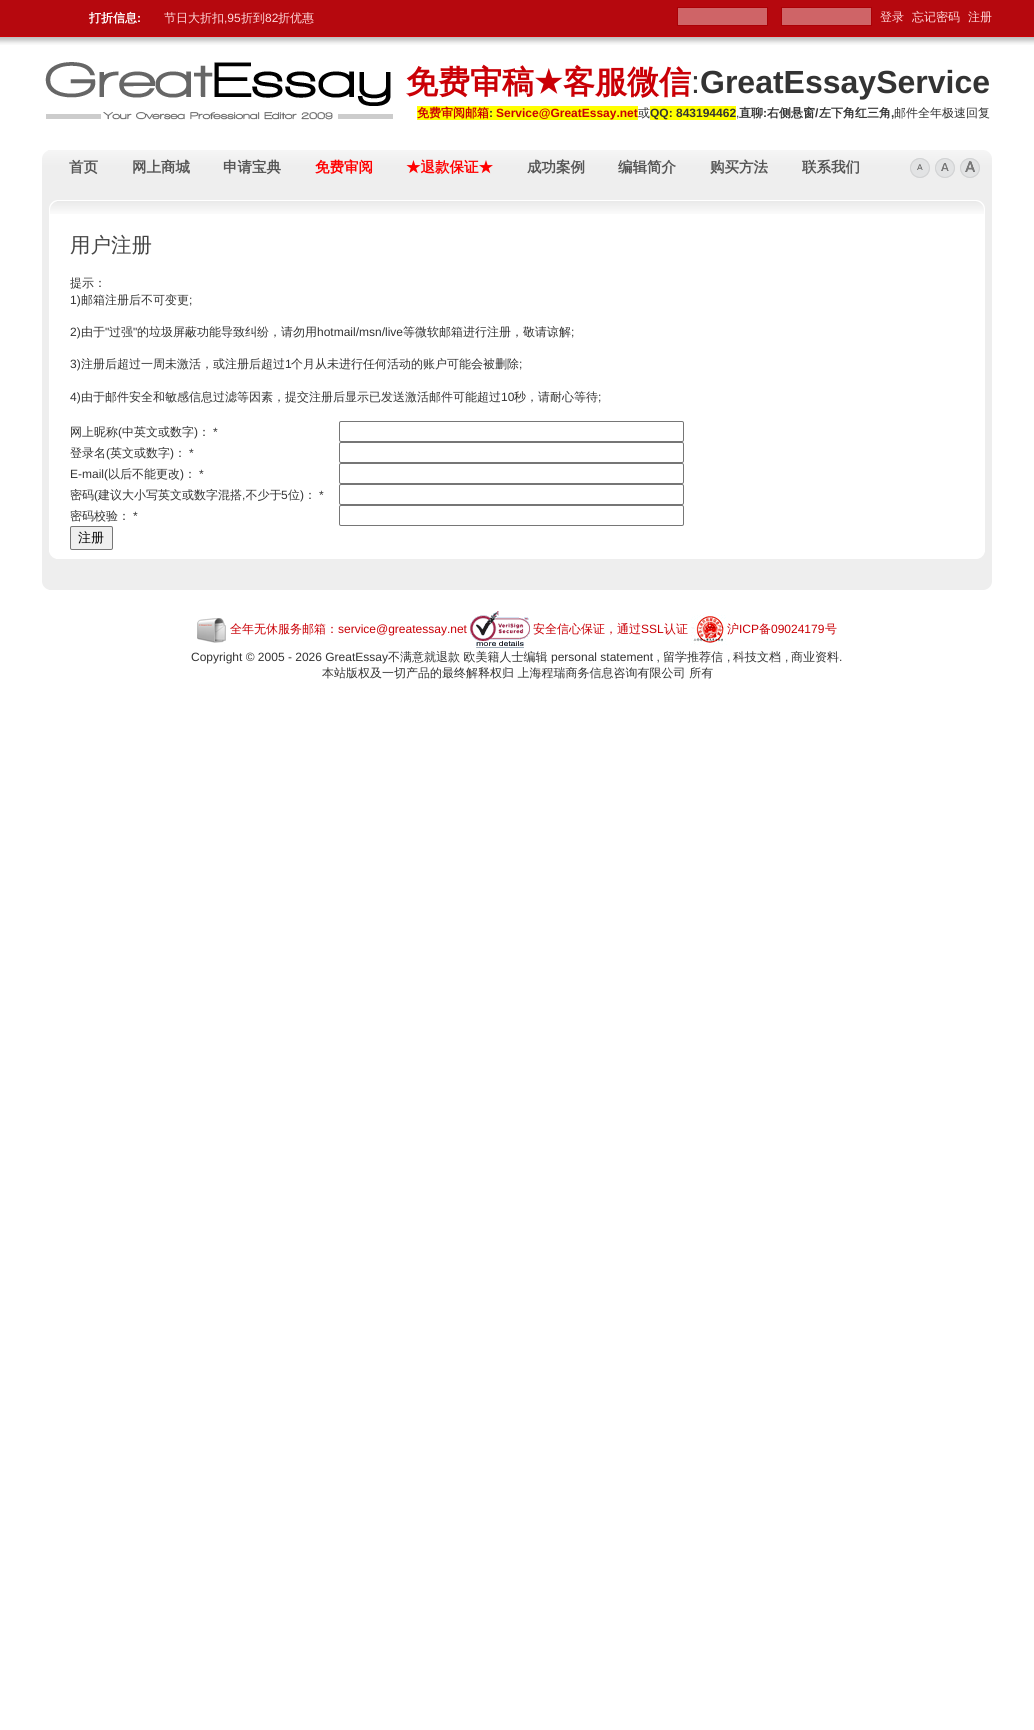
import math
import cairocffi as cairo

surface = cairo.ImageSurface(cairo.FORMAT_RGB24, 1034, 1730)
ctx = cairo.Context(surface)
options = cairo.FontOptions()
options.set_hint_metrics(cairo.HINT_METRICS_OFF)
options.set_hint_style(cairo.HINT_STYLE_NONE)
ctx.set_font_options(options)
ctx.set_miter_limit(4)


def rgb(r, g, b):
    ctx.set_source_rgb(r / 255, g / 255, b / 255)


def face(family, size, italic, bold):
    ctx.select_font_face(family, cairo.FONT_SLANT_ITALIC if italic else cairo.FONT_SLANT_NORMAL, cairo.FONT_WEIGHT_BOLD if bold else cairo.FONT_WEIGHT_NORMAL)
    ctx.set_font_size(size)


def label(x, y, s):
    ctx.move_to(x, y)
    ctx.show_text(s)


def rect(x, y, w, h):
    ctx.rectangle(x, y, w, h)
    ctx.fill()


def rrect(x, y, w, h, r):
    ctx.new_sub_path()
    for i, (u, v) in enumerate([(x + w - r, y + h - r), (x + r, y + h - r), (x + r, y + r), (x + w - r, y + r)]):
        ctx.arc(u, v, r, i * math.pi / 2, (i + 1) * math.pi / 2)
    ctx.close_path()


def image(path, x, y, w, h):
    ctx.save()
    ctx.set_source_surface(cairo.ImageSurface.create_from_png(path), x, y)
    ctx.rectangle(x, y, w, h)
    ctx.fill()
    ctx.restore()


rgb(255, 255, 255)
ctx.paint()
image('image0.png', 0, 0, 1034, 45)
face('WenQuanYi Zen Hei', 12, 0, 1)
rgb(255, 255, 255)
label(89, 22, '打折信息')
face('Liberation Sans', 12, 0, 1)
label(137, 22, ':')
face('WenQuanYi Zen Hei Medium', 12, 0, 0)
rgb(255, 217, 218)
label(164, 22, '节日大折扣')
face('Liberation Sans', 12, 0, 0)
label(224, 22, ',95')
face('WenQuanYi Zen Hei Medium', 12, 0, 0)
label(241, 22, '折到')
face('Liberation Sans', 12, 0, 0)
label(265, 22, '82')
face('WenQuanYi Zen Hei Medium', 12, 0, 0)
label(278, 22, '折优惠')
rgb(207, 100, 103)
ctx.rectangle(677.5, 7.5, 90, 18)
ctx.fill_preserve()
rgb(171, 0, 5)
ctx.set_line_width(1)
ctx.stroke()
rgb(207, 100, 103)
ctx.rectangle(781.5, 7.5, 90, 18)
ctx.fill_preserve()
rgb(171, 0, 5)
ctx.stroke()
rgb(255, 217, 218)
label(880, 21, '登录')
label(912, 21, '忘记密码')
label(968, 21, '注册')
image('image1.png', 45, 62, 348, 58)
face('WenQuanYi Zen Hei', 32, 0, 1)
rgb(202, 0, 6)
label(406, 93, '免费审稿')
face('DejaVu Sans', 32, 0, 1)
label(534, 93, '★')
face('WenQuanYi Zen Hei', 32, 0, 1)
label(563, 93, '客服微信')
face('Liberation Sans', 32, 0, 0)
rgb(51, 51, 51)
label(691, 93, ':')
face('Liberation Sans', 32, 0, 1)
label(700, 93, 'GreatEssayService')
rgb(255, 255, 0)
rect(417, 106, 221, 14)
face('WenQuanYi Zen Hei', 12, 0, 1)
rgb(202, 0, 6)
label(417, 117, '免费审阅邮箱')
face('Liberation Sans', 12, 0, 1)
rgb(51, 51, 51)
label(489, 117, ':')
rgb(202, 0, 6)
label(496, 117, 'Service@GreatEssay.net')
face('WenQuanYi Zen Hei Medium', 12, 0, 0)
rgb(51, 51, 51)
label(638, 117, '或')
rgb(255, 255, 0)
rect(650, 106, 86, 14)
face('Liberation Sans', 12, 0, 1)
rgb(51, 51, 51)
label(650, 117, 'QQ: 843194462')
face('Liberation Sans', 12, 0, 0)
label(736, 117, ',')
face('WenQuanYi Zen Hei', 12, 0, 1)
label(739, 117, '直聊')
face('Liberation Sans', 12, 0, 1)
label(763, 117, ':')
face('WenQuanYi Zen Hei', 12, 0, 1)
label(767, 117, '右侧悬窗')
face('Liberation Sans', 12, 0, 1)
label(815, 117, '/')
face('WenQuanYi Zen Hei', 12, 0, 1)
label(819, 117, '左下角红三角')
face('Liberation Sans', 12, 0, 1)
label(891, 117, ',')
face('WenQuanYi Zen Hei Medium', 12, 0, 0)
label(894, 117, '邮件全年极速回复')
rgb(238, 238, 238)
rect(42, 173, 950, 397)
image('image2.png', 34, 145, 958, 28)
image('image3.png', 34, 150, 14, 23)
face('WenQuanYi Zen Hei', 14.5, 0, 1)
rgb(85, 85, 85)
label(69, 172, '首页')
label(132, 172, '网上商城')
label(223, 172, '申请宝典')
rgb(255, 0, 0)
label(315, 172, '免费审阅')
label(406, 172, '★退款保证★')
rgb(85, 85, 85)
label(527, 172, '成功案例')
label(618, 172, '编辑简介')
label(710, 172, '购买方法')
label(802, 172, '联系我们')
image('image4.png', 910, 158, 20, 20)
image('image5.png', 935, 158, 20, 20)
image('image6.png', 960, 158, 20, 20)
rgb(255, 255, 255)
rect(49, 214, 936, 338)
image('image7.png', 49, 552, 936, 18)
image('image8.png', 49, 552, 7, 7)
image('image9.png', 49, 190, 936, 24)
image('image10.png', 49, 200, 8, 14)
face('WenQuanYi Zen Hei Medium', 20.5, 0, 0)
rgb(68, 68, 68)
label(70, 252, '用户注册')
face('WenQuanYi Zen Hei Medium', 12, 0, 0)
rgb(51, 51, 51)
label(70, 287, '提示：')
face('Liberation Sans', 12, 0, 0)
label(70, 304, '1)')
face('WenQuanYi Zen Hei Medium', 12, 0, 0)
label(81, 304, '邮箱注册后不可变更')
face('Liberation Sans', 12, 0, 0)
label(189, 304, ';')
label(70, 336, '2)')
face('WenQuanYi Zen Hei Medium', 12, 0, 0)
label(81, 336, '由于')
face('Liberation Sans', 12, 0, 0)
label(105, 336, '"')
face('WenQuanYi Zen Hei Medium', 12, 0, 0)
label(109, 336, '过强')
face('Liberation Sans', 12, 0, 0)
label(133, 336, '"')
face('WenQuanYi Zen Hei Medium', 12, 0, 0)
label(137, 336, '的垃圾屏蔽功能导致纠纷，请勿用')
face('Liberation Sans', 12, 0, 0)
label(317, 336, 'hotmail/msn/live')
face('WenQuanYi Zen Hei Medium', 12, 0, 0)
label(403, 336, '等微软邮箱进行注册，敬请谅解')
face('Liberation Sans', 12, 0, 0)
label(571, 336, ';')
label(70, 368, '3)')
face('WenQuanYi Zen Hei Medium', 12, 0, 0)
label(81, 368, '注册后超过一周未激活，或注册后超过')
face('Liberation Sans', 12, 0, 0)
label(285, 368, '1')
face('WenQuanYi Zen Hei Medium', 12, 0, 0)
label(291, 368, '个月从未进行任何活动的账户可能会被删除')
face('Liberation Sans', 12, 0, 0)
label(519, 368, ';')
label(70, 401, '4)')
face('WenQuanYi Zen Hei Medium', 12, 0, 0)
label(81, 401, '由于邮件安全和敏感信息过滤等因素，提交注册后显示已发送激活邮件可能超过')
face('Liberation Sans', 12, 0, 0)
label(501, 401, '10')
face('WenQuanYi Zen Hei Medium', 12, 0, 0)
label(514, 401, '秒，请耐心等待')
face('Liberation Sans', 12, 0, 0)
label(598, 401, ';')
face('WenQuanYi Zen Hei Medium', 12, 0, 0)
label(70, 436, '网上昵称')
face('Liberation Sans', 12, 0, 0)
label(118, 436, '(')
face('WenQuanYi Zen Hei Medium', 12, 0, 0)
label(122, 436, '中英文或数字')
face('Liberation Sans', 12, 0, 0)
label(194, 436, ')')
face('WenQuanYi Zen Hei Medium', 12, 0, 0)
label(198, 436, '：')
face('Liberation Sans', 12, 0, 0)
label(213, 436, '*')
rrect(339.5, 421.5, 344, 20, 1.5)
rgb(118, 118, 118)
ctx.stroke()
face('WenQuanYi Zen Hei Medium', 12, 0, 0)
rgb(51, 51, 51)
label(70, 457, '登录名')
face('Liberation Sans', 12, 0, 0)
label(106, 457, '(')
face('WenQuanYi Zen Hei Medium', 12, 0, 0)
label(110, 457, '英文或数字')
face('Liberation Sans', 12, 0, 0)
label(170, 457, ')')
face('WenQuanYi Zen Hei Medium', 12, 0, 0)
label(174, 457, '：')
face('Liberation Sans', 12, 0, 0)
label(189, 457, '*')
rrect(339.5, 442.5, 344, 20, 1.5)
rgb(118, 118, 118)
ctx.stroke()
rgb(51, 51, 51)
label(70, 478, 'E-mail(')
face('WenQuanYi Zen Hei Medium', 12, 0, 0)
label(108, 478, '以后不能更改')
face('Liberation Sans', 12, 0, 0)
label(180, 478, ')')
face('WenQuanYi Zen Hei Medium', 12, 0, 0)
label(184, 478, '：')
face('Liberation Sans', 12, 0, 0)
label(199, 478, '*')
rrect(339.5, 463.5, 344, 20, 1.5)
rgb(118, 118, 118)
ctx.stroke()
face('WenQuanYi Zen Hei Medium', 12, 0, 0)
rgb(51, 51, 51)
label(70, 499, '密码')
face('Liberation Sans', 12, 0, 0)
label(94, 499, '(')
face('WenQuanYi Zen Hei Medium', 12, 0, 0)
label(98, 499, '建议大小写英文或数字混搭 不少于')
face('Liberation Sans', 12, 0, 0)
label(281, 499, '5')
face('WenQuanYi Zen Hei Medium', 12, 0, 0)
label(288, 499, '位')
face('Liberation Sans', 12, 0, 0)
label(300, 499, ')')
face('WenQuanYi Zen Hei Medium', 12, 0, 0)
label(304, 499, '：')
face('Liberation Sans', 12, 0, 0)
label(319, 499, '*')
label(242, 499, ',')
rrect(339.5, 484.5, 344, 20, 1.5)
rgb(118, 118, 118)
ctx.stroke()
face('WenQuanYi Zen Hei Medium', 12, 0, 0)
rgb(51, 51, 51)
label(70, 520, '密码校验：')
face('Liberation Sans', 12, 0, 0)
label(133, 520, '*')
rrect(339.5, 505.5, 344, 20, 1.5)
rgb(118, 118, 118)
ctx.stroke()
rgb(239, 239, 239)
rrect(70.5, 526.5, 42, 23, 1.5)
ctx.fill_preserve()
rgb(118, 118, 118)
ctx.stroke()
face('WenQuanYi Zen Hei Medium', 13, 0, 0)
rgb(0, 0, 0)
label(78, 542, '注册')
image('image11.png', 34, 570, 966, 41)
image('image12.png', 34, 570, 15, 20)
image('image13.png', 197, 618, 29, 25)
face('WenQuanYi Zen Hei Medium', 12, 0, 0)
rgb(202, 0, 6)
label(230, 633, '全年无休服务邮箱：')
face('Liberation Sans', 12, 0, 0)
label(338, 633, 'service@greatessay.net')
image('image14.png', 470, 611, 60, 37)
face('WenQuanYi Zen Hei Medium', 12, 0, 0)
label(533, 633, '安全信心保证，通过')
face('Liberation Sans', 12, 0, 0)
label(641, 633, 'SSL')
face('WenQuanYi Zen Hei Medium', 12, 0, 0)
label(664, 633, '认证')
image('image15.png', 691, 615, 36, 30)
label(727, 633, '沪')
face('Liberation Sans', 12, 0, 0)
label(739, 633, 'ICP')
face('WenQuanYi Zen Hei Medium', 12, 0, 0)
label(759, 633, '备')
face('Liberation Sans', 12, 0, 0)
label(771, 633, '09024179')
face('WenQuanYi Zen Hei Medium', 12, 0, 0)
label(825, 633, '号')
face('Liberation Sans', 12, 0, 0)
rgb(51, 51, 51)
label(191, 661, 'Copyright © 2005 - 2026 GreatEssay')
face('WenQuanYi Zen Hei Medium', 12, 0, 0)
label(388, 661, '不满意就退款 欧美籍人士编辑')
face('Liberation Sans', 12, 0, 0)
label(551, 661, 'personal statement ,')
face('WenQuanYi Zen Hei Medium', 12, 0, 0)
label(663, 661, '留学推荐信')
face('Liberation Sans', 12, 0, 0)
label(727, 661, ',')
face('WenQuanYi Zen Hei Medium', 12, 0, 0)
label(733, 661, '科技文档')
face('Liberation Sans', 12, 0, 0)
label(785, 661, ',')
face('WenQuanYi Zen Hei Medium', 12, 0, 0)
label(791, 661, '商业资料')
face('Liberation Sans', 12, 0, 0)
label(839, 661, '.')
face('WenQuanYi Zen Hei Medium', 12, 0, 0)
label(322, 677, '本站版权及一切产品的最终解释权归 上海程瑞商务信息咨询有限公司 所有')
surface.write_to_png('render.png')
